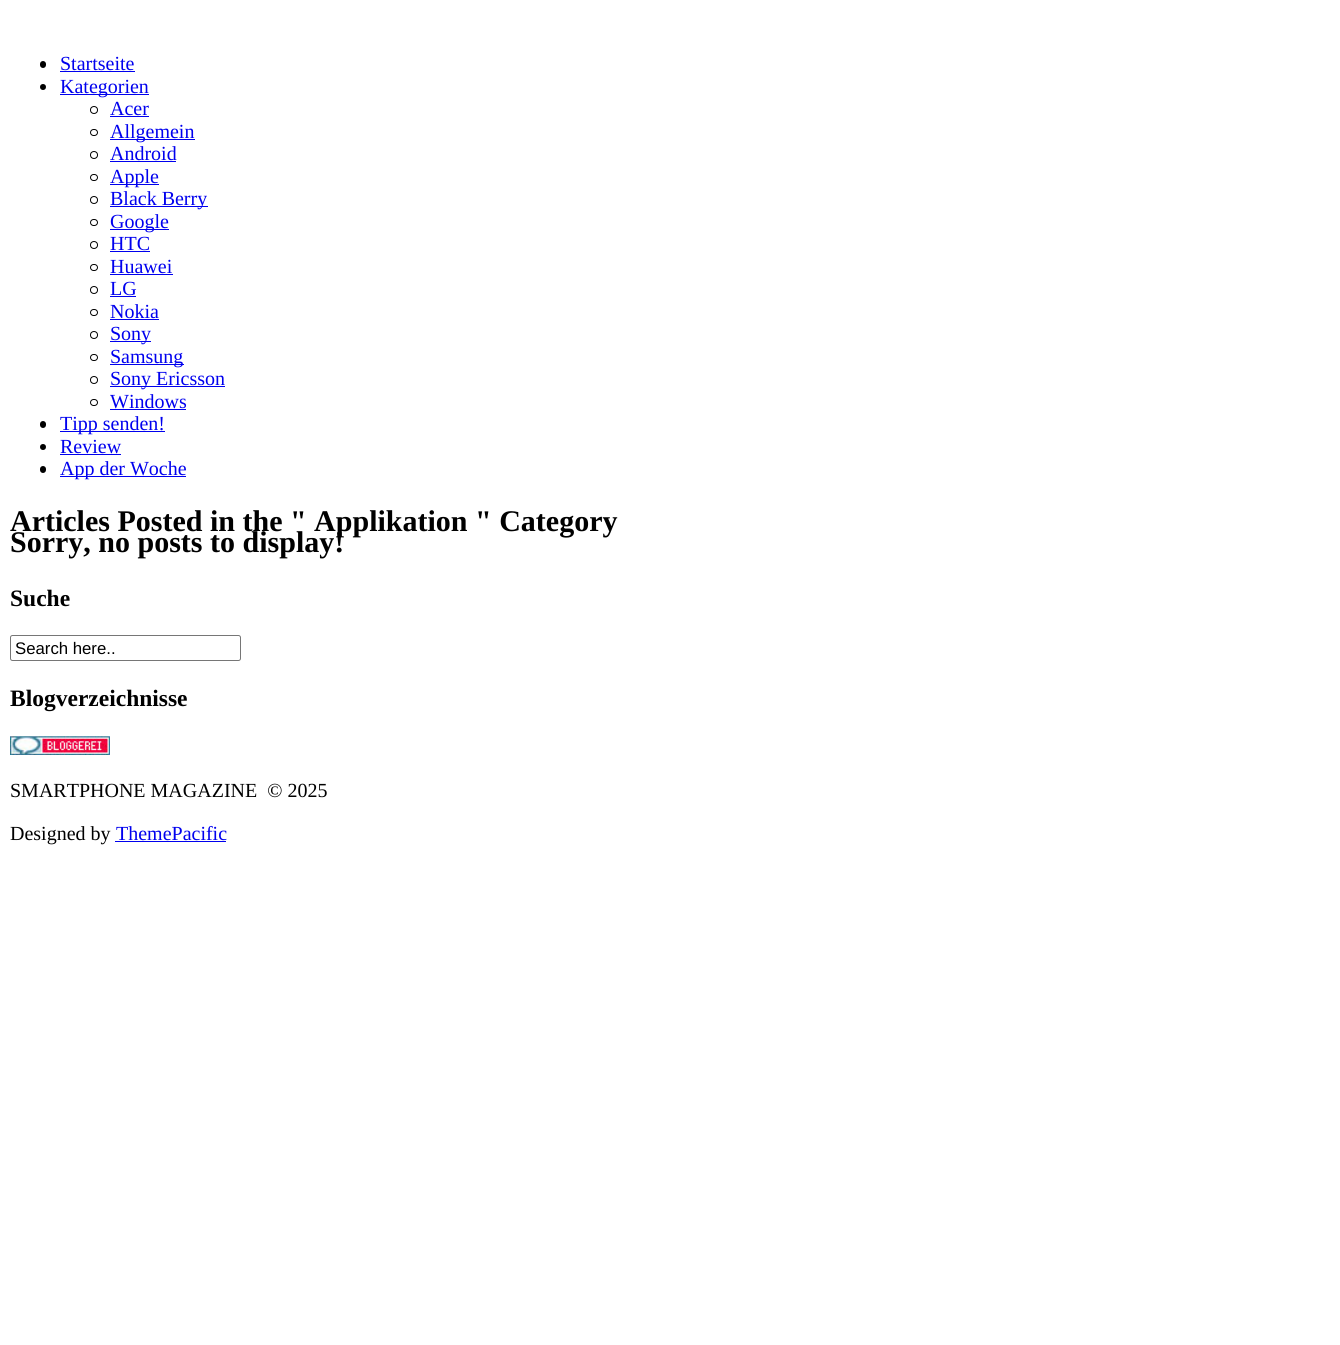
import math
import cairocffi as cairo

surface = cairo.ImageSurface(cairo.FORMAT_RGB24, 1340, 1345)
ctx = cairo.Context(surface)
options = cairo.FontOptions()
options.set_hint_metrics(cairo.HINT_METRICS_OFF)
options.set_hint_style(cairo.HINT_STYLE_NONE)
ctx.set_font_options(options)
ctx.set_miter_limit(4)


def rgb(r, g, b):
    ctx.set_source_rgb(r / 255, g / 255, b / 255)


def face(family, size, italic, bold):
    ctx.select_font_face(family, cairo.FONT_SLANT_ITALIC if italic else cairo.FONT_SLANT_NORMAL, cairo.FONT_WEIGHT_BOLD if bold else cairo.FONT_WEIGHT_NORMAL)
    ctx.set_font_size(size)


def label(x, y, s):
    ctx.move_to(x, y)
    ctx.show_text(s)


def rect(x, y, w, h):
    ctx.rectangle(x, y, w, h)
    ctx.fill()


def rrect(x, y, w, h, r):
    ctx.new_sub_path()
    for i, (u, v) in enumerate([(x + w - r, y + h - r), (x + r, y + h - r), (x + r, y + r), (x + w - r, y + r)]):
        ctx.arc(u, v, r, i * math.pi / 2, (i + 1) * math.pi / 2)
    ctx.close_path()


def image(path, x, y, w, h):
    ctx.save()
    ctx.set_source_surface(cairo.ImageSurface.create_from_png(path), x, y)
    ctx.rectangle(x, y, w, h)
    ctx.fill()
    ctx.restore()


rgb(255, 255, 255)
ctx.paint()
rgb(0, 0, 0)
rrect(40, 61, 6, 7, 3)
ctx.fill()
face('Liberation Serif', 20, 0, 0)
rgb(0, 0, 238)
label(60, 70, 'Startseite')
rect(60, 71, 75, 1)
rgb(0, 0, 0)
ctx.new_path()
ctx.arc(43, 87, 3, 0, 2 * math.pi)
ctx.fill()
rgb(0, 0, 238)
rect(60, 94, 89, 1)
label(60, 93, 'Kategorien')
ctx.new_path()
ctx.arc(94, 110, 3.5, 0, 2 * math.pi)
rgb(0, 0, 0)
ctx.set_line_width(1)
ctx.stroke()
rgb(0, 0, 238)
label(110, 115, 'Acer')
rect(110, 116, 39, 1)
rrect(90.5, 129.5, 7, 6, 3)
rgb(0, 0, 0)
ctx.stroke()
rgb(0, 0, 238)
rect(110, 139, 85, 1)
label(110, 138, 'Allgemein')
ctx.new_path()
ctx.arc(94, 155, 3.5, 0, 2 * math.pi)
rgb(0, 0, 0)
ctx.stroke()
rgb(0, 0, 238)
label(110, 160, 'Android')
rect(110, 161, 66, 1)
rrect(90.5, 174.5, 7, 6, 3)
rgb(0, 0, 0)
ctx.stroke()
rgb(0, 0, 238)
rect(110, 184, 49, 1)
label(110, 183, 'Apple')
ctx.new_path()
ctx.arc(94, 200, 3.5, 0, 2 * math.pi)
rgb(0, 0, 0)
ctx.stroke()
rgb(0, 0, 238)
rect(110, 206, 98, 1)
label(110, 205, 'Black Berry')
rrect(90.5, 219.5, 7, 6, 3)
rgb(0, 0, 0)
ctx.stroke()
rgb(0, 0, 238)
rect(110, 229, 59, 1)
label(110, 228, 'Google')
ctx.new_path()
ctx.arc(94, 245, 3.5, 0, 2 * math.pi)
rgb(0, 0, 0)
ctx.stroke()
rgb(0, 0, 238)
label(110, 250, 'HTC')
rect(110, 251, 40, 1)
rrect(90.5, 264.5, 7, 6, 3)
rgb(0, 0, 0)
ctx.stroke()
rgb(0, 0, 238)
label(110, 273, 'Huawei')
rect(110, 274, 63, 1)
ctx.new_path()
ctx.arc(94, 290, 3.5, 0, 2 * math.pi)
rgb(0, 0, 0)
ctx.stroke()
rgb(0, 0, 238)
label(110, 295, 'LG')
rect(110, 296, 26, 1)
rrect(90.5, 309.5, 7, 6, 3)
rgb(0, 0, 0)
ctx.stroke()
rgb(0, 0, 238)
label(110, 318, 'Nokia')
rect(110, 319, 49, 1)
ctx.new_path()
ctx.arc(94, 335, 3.5, 0, 2 * math.pi)
rgb(0, 0, 0)
ctx.stroke()
rgb(0, 0, 238)
rect(110, 341, 41, 1)
label(110, 340, 'Sony')
rrect(90.5, 354.5, 7, 6, 3)
rgb(0, 0, 0)
ctx.stroke()
rgb(0, 0, 238)
rect(110, 364, 74, 1)
label(110, 363, 'Samsung')
ctx.new_path()
ctx.arc(94, 380, 3.5, 0, 2 * math.pi)
rgb(0, 0, 0)
ctx.stroke()
rgb(0, 0, 238)
rect(110, 386, 115, 1)
label(110, 385, 'Sony Ericsson')
rrect(90.5, 399.5, 7, 6, 3)
rgb(0, 0, 0)
ctx.stroke()
rgb(0, 0, 238)
label(110, 408, 'Windows')
rect(110, 409, 76, 1)
rgb(0, 0, 0)
rrect(40, 421, 6, 7, 3)
ctx.fill()
rgb(0, 0, 238)
rect(60, 431, 105, 1)
label(60, 430, 'Tipp senden!')
rgb(0, 0, 0)
ctx.new_path()
ctx.arc(43, 447, 3, 0, 2 * math.pi)
ctx.fill()
rgb(0, 0, 238)
label(60, 453, 'Review')
rect(60, 454, 61, 1)
rgb(0, 0, 0)
rrect(40, 466, 6, 7, 3)
ctx.fill()
rgb(0, 0, 238)
rect(60, 476, 126, 1)
label(60, 475, 'App der Woche')
face('Liberation Serif', 30, 0, 1)
rgb(0, 0, 0)
label(10, 531, 'Articles Posted in the " Applikation " Category')
label(10, 552, 'Sorry, no posts to display!')
face('Liberation Serif', 23.5, 0, 1)
label(10, 606, 'Suche')
rrect(10.5, 635.5, 230, 25, 2)
rgb(118, 118, 118)
ctx.stroke()
face('Liberation Sans', 16.75, 0, 0)
rgb(0, 0, 0)
label(15, 654, 'Search here..')
face('Liberation Serif', 23.5, 0, 1)
label(10, 706, 'Blogverzeichnisse')
image('image0.png', 10, 736, 100, 19)
face('Liberation Serif', 20, 0, 0)
label(10, 797, 'SMARTPHONE MAGAZINE  © 2025')
label(10, 840, 'Designed by')
rgb(0, 0, 238)
label(116, 840, 'ThemePacific')
rect(115, 841, 111, 1)
surface.write_to_png('render.png')
